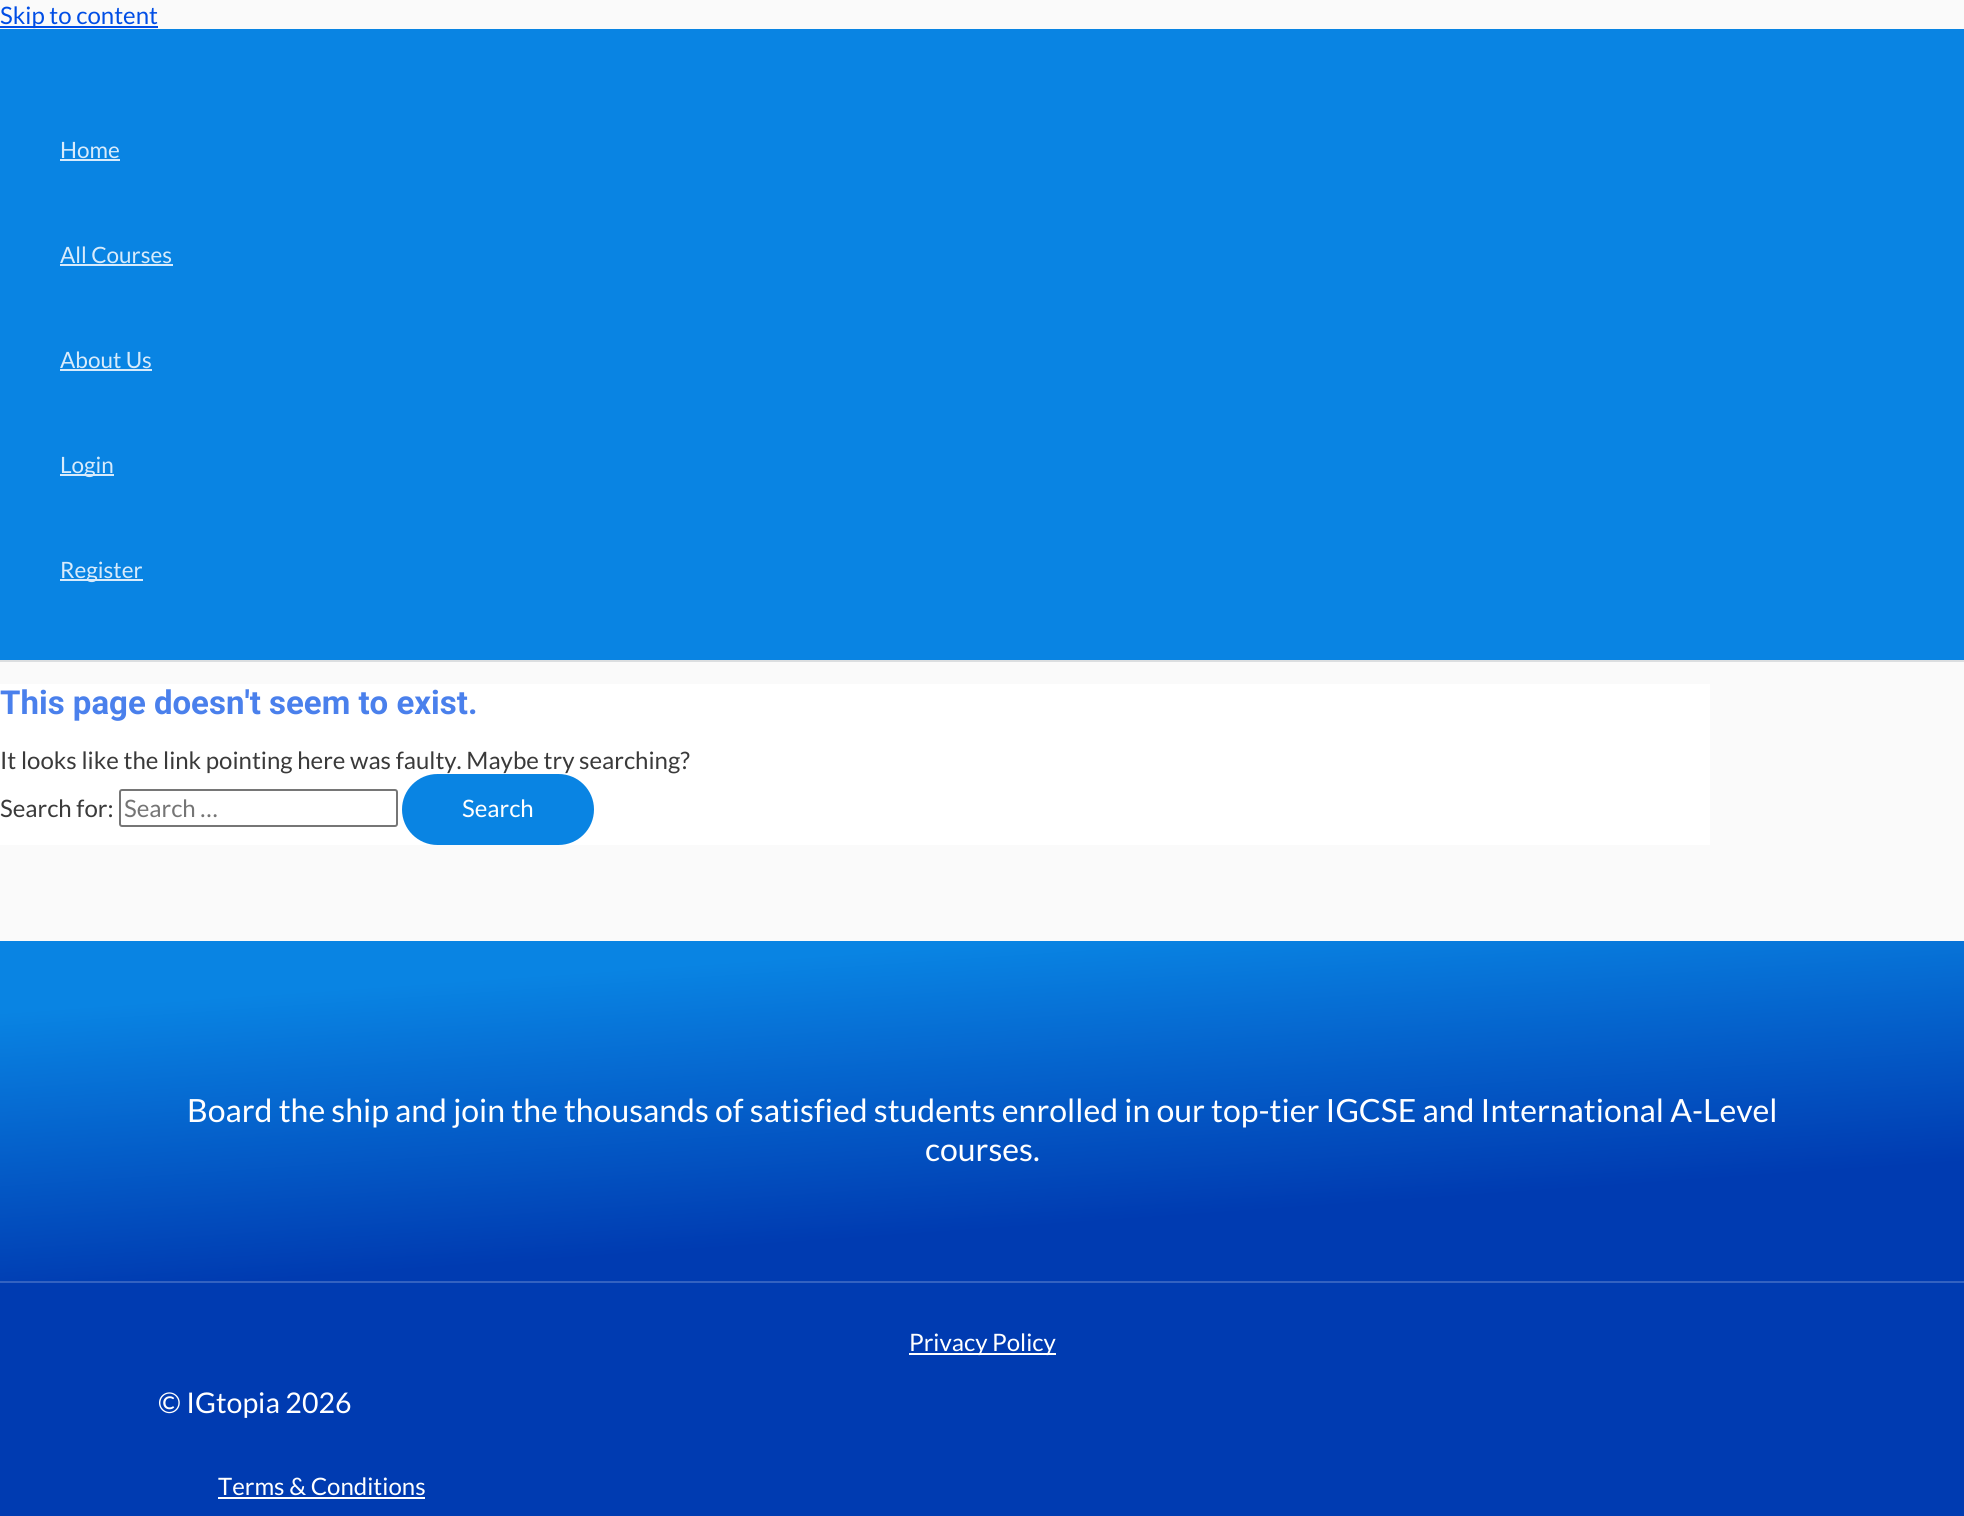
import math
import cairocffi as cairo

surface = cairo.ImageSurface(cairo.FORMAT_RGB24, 1964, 1516)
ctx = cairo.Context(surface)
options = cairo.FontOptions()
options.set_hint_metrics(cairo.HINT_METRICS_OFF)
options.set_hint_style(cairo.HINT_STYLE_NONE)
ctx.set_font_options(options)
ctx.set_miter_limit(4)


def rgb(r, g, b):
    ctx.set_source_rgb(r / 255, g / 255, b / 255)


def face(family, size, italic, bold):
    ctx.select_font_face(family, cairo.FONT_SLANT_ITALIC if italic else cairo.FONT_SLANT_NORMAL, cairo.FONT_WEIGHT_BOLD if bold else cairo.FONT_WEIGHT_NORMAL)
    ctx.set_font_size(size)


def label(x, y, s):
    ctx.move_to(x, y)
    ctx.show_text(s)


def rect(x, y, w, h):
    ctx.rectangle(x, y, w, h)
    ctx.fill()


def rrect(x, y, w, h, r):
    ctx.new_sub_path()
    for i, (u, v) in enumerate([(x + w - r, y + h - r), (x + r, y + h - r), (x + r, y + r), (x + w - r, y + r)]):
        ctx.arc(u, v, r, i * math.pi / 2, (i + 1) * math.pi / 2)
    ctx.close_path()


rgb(250, 250, 250)
ctx.paint()
rgb(0, 77, 229)
rect(0, 26, 158, 2)
face('Lato', 24, 0, 0)
label(0, 24, 'Skip to content')
rgb(9, 132, 227)
rect(0, 29, 1964, 631)
rgb(219, 222, 224)
rect(0, 660, 1964, 2)
face('Lato', 22.5, 0, 0)
rgb(216, 235, 251)
label(60, 158, 'Home')
rect(60, 159, 60, 2)
label(60, 263, 'All Courses')
rect(60, 264, 113, 2)
label(60, 368, 'About Us')
rect(60, 369, 92, 2)
rect(60, 474, 54, 2)
label(60, 473, 'Login')
rect(60, 579, 83, 2)
label(60, 578, 'Register')
rgb(255, 255, 255)
rect(0, 684, 1710, 161)
face('Roboto', 33, 0, 1)
rgb(74, 128, 236)
label(0, 714, 'This page doesn\'t seem to exist.')
face('Lato', 24, 0, 0)
rgb(58, 58, 58)
label(0, 769, 'It looks like the link pointing here was faulty. Maybe try searching?')
label(0, 817, 'Search for:')
rrect(120, 790, 277, 36, 2)
rgb(118, 118, 118)
ctx.stroke()
rgb(117, 117, 117)
label(124, 817, 'Search …')
rgb(9, 132, 227)
rrect(402, 774, 192, 71, 35.5)
ctx.fill()
rgb(255, 255, 255)
label(462, 817, 'Search')
gradient = cairo.LinearGradient(966, 873, 999, 1349)
gradient.add_color_stop_rgba(0.15, 0.035, 0.518, 0.89, 1)
gradient.add_color_stop_rgba(0.75, 0, 0.231, 0.694, 1)
ctx.set_source(gradient)
rect(0, 941, 1964, 340)
face('Lato', 32, 0, 0)
rgb(255, 255, 255)
label(187, 1122, 'Board the ship and join the thousands of satisfied students enrolled in our top-tier IGCSE and International A-Level')
label(925, 1161, 'courses.')
rgb(0, 59, 177)
rect(0, 1283, 1964, 233)
rgb(51, 98, 193)
rect(0, 1281, 1964, 2)
rgb(255, 255, 255)
rect(909, 1353, 147, 2)
face('Lato', 24, 0, 0)
label(909, 1351, 'Privacy Policy')
face('Lato', 28.5, 0, 0)
label(158, 1413, '© IGtopia 2026')
face('Lato', 24, 0, 0)
label(218, 1495, 'Terms & Conditions')
rect(218, 1497, 207, 2)
surface.write_to_png('render.png')
